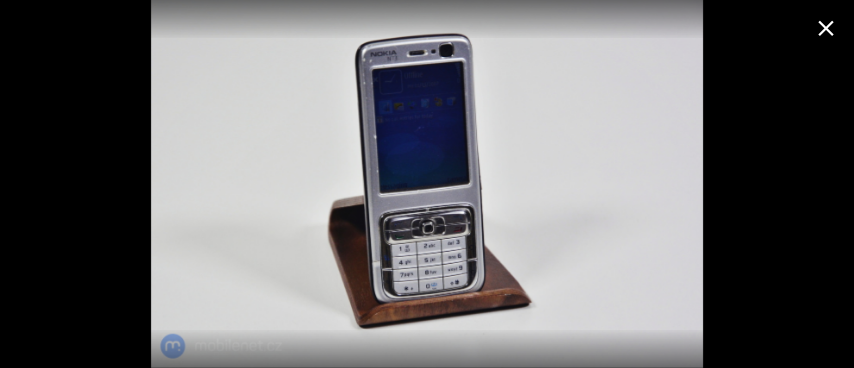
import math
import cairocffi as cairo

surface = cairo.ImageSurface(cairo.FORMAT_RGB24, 854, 368)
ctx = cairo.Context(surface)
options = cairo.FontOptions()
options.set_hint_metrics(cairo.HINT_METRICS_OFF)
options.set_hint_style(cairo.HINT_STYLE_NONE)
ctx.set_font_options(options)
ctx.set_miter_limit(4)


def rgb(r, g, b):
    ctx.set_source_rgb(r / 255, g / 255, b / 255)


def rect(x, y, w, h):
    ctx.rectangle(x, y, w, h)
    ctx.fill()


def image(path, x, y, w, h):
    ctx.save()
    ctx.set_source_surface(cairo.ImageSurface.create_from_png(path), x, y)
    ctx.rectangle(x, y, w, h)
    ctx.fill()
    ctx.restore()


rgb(0, 0, 0)
ctx.paint()
image('image0.png', 150, 0, 554, 368)
gradient = cairo.LinearGradient(427, 0, 427, 40)
gradient.add_color_stop_rgba(0, 0, 0, 0, 0.5)
gradient.add_color_stop_rgba(1, 0, 0, 0, 0)
ctx.set_source(gradient)
rect(150, 0, 554, 38)
gradient = cairo.LinearGradient(427, 328, 427, 368)
gradient.add_color_stop_rgba(0, 0, 0, 0, 0)
gradient.add_color_stop_rgba(1, 0, 0, 0, 0.5)
ctx.set_source(gradient)
rect(150, 330, 554, 38)
image('image1.png', 818, 20, 16, 16)
surface.write_to_png('render.png')
